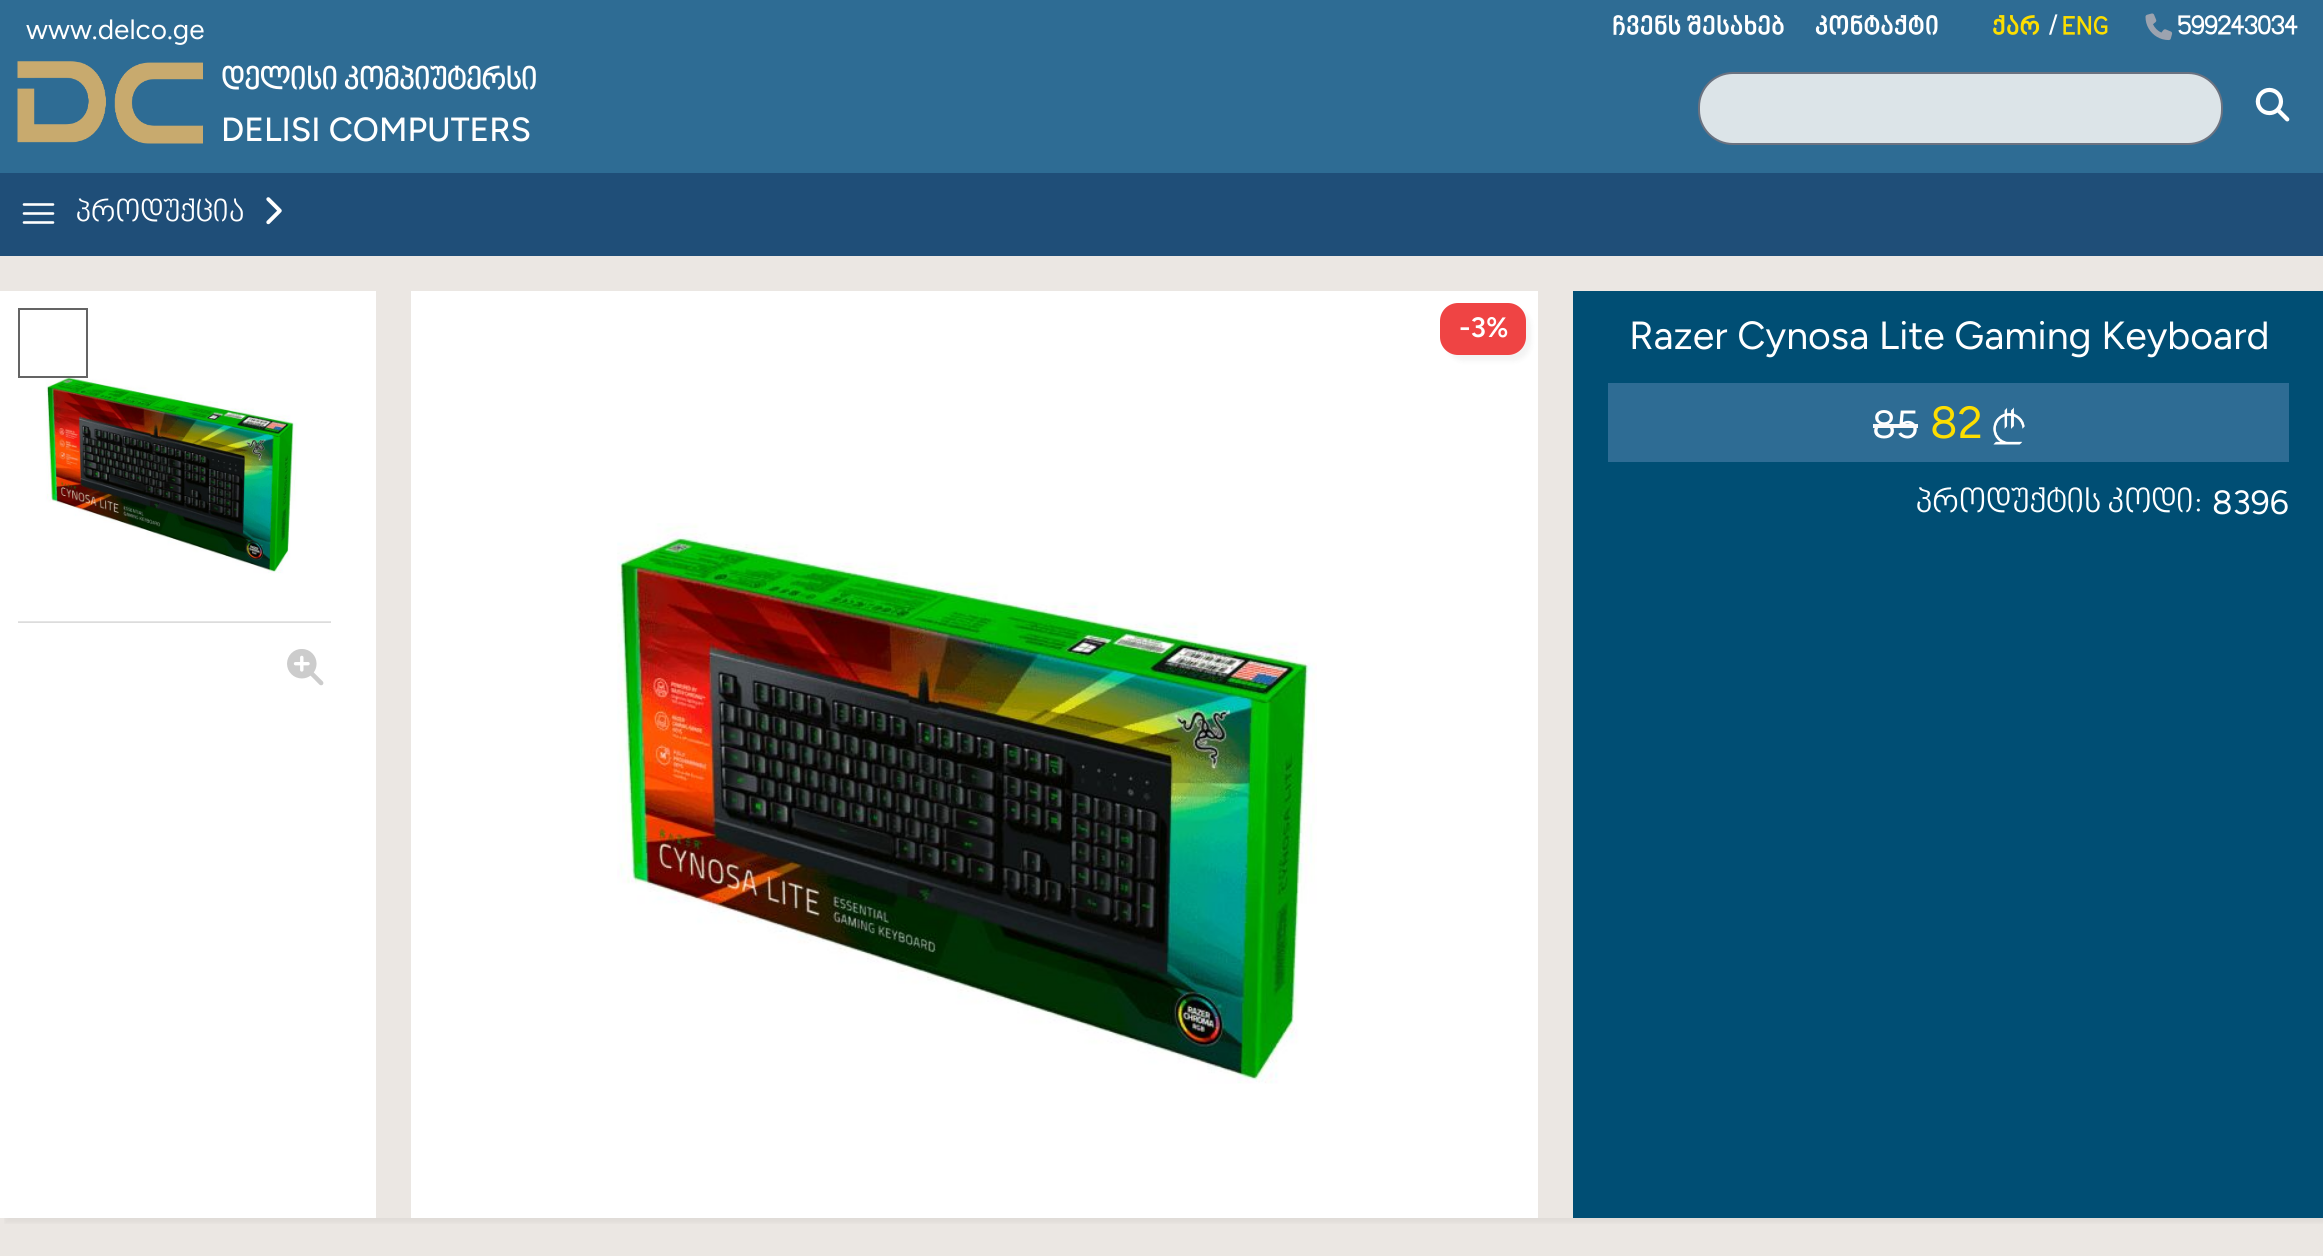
import math
import cairocffi as cairo

surface = cairo.ImageSurface(cairo.FORMAT_RGB24, 2323, 1256)
ctx = cairo.Context(surface)
options = cairo.FontOptions()
options.set_hint_metrics(cairo.HINT_METRICS_OFF)
options.set_hint_style(cairo.HINT_STYLE_NONE)
ctx.set_font_options(options)
ctx.set_miter_limit(4)


def rgb(r, g, b):
    ctx.set_source_rgb(r / 255, g / 255, b / 255)


def face(family, size, italic, bold):
    ctx.select_font_face(family, cairo.FONT_SLANT_ITALIC if italic else cairo.FONT_SLANT_NORMAL, cairo.FONT_WEIGHT_BOLD if bold else cairo.FONT_WEIGHT_NORMAL)
    ctx.set_font_size(size)


def label(x, y, s):
    ctx.move_to(x, y)
    ctx.show_text(s)


def rect(x, y, w, h):
    ctx.rectangle(x, y, w, h)
    ctx.fill()


def rrect(x, y, w, h, r):
    ctx.new_sub_path()
    for i, (u, v) in enumerate([(x + w - r, y + h - r), (x + r, y + h - r), (x + r, y + r), (x + w - r, y + r)]):
        ctx.arc(u, v, r, i * math.pi / 2, (i + 1) * math.pi / 2)
    ctx.close_path()


def soft_shadow(x, y, w, h, r, blur, alpha):
    ctx.push_group_with_content(cairo.CONTENT_ALPHA)
    ctx.set_operator(cairo.OPERATOR_SOURCE)
    for i in range(15, -16, -2):
        e = blur * i / 6
        if min(w, h) + 2 * e > 0:
            ctx.set_source_rgba(0, 0, 0, alpha * math.erfc((i - 1) / 8.5) / 2)
            rrect(x - e, y - e, w + 2 * e, h + 2 * e, max(0, min(r + e + blur * .6, min(w, h) / 2 + e)))
            ctx.fill()
    ctx.mask(ctx.pop_group())


def image(path, x, y, w, h):
    ctx.save()
    ctx.set_source_surface(cairo.ImageSurface.create_from_png(path), x, y)
    ctx.rectangle(x, y, w, h)
    ctx.fill()
    ctx.restore()


rgb(235, 231, 227)
ctx.paint()
rgb(46, 108, 148)
rect(0, 0, 2323, 173)
face('Figtree Light', 28, 0, 0)
rgb(255, 255, 255)
label(26, 39, 'www.delco.ge')
face('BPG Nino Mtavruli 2', 26.5, 0, 1)
label(1612, 36, 'ჩვენს შესახებ')
label(1815, 36, 'კონტაქტი')
rgb(253, 222, 0)
label(1992, 36, 'ქარ')
rgb(255, 255, 255)
label(2049, 36, '/')
rgb(253, 222, 0)
label(2062, 36, 'ENG')
image('image0.png', 2145, 13, 28, 28)
rgb(255, 255, 255)
label(2178, 36, '599243034')
image('image1.png', 17, 61, 186, 83)
face('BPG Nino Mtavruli', 30.75, 0, 1)
label(221, 91, 'დელისი კომპიუტერსი')
face('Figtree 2 Light', 33.5, 0, 0)
label(221, 141, 'DELISI COMPUTERS')
rgb(220, 228, 232)
rrect(1699, 73, 523, 71, 34)
ctx.fill_preserve()
rgb(107, 114, 128)
ctx.stroke()
image('image2.png', 2255, 87, 35, 35)
rgb(31, 78, 120)
rect(0, 173, 2323, 83)
ctx.new_path()
ctx.move_to(24, 204.5)
ctx.line_to(53, 204.5)
ctx.move_to(24, 213.5)
ctx.line_to(53, 213.5)
ctx.move_to(24, 222.5)
ctx.line_to(53, 222.5)
rgb(255, 255, 255)
ctx.set_line_width(2.6)
ctx.set_line_cap(cairo.LINE_CAP_ROUND)
ctx.set_line_join(cairo.LINE_JOIN_ROUND)
ctx.stroke()
face('BPG Nino Mtavruli', 30.75, 0, 0)
label(76, 223, 'პროდუქცია')
image('image3.png', 266, 197, 16, 28)
ctx.save()
ctx.rectangle(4, 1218, 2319, 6)
ctx.clip()
rgb(0, 0, 0)
soft_shadow(5, 296, 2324, 927, 0, 2.5, 0.05)
ctx.restore()
rect(0, 291, 376, 927)
rgb(220, 220, 220)
rect(18, 621, 313, 2)
image('image4.png', 18, 373, 313, 249)
ctx.rectangle(19, 309, 68, 68)
rgb(100, 100, 100)
ctx.set_line_width(2)
ctx.set_line_cap(cairo.LINE_CAP_BUTT)
ctx.set_line_join(cairo.LINE_JOIN_MITER)
ctx.stroke()
image('image5.png', 287, 649, 37, 37)
rgb(255, 255, 255)
rect(411, 291, 1127, 927)
rgb(0, 0, 0)
soft_shadow(1446, 308, 85, 53, 18, 2.5, 0.05)
rgb(239, 68, 68)
rrect(1440, 303, 86, 52, 18)
ctx.fill()
face('Figtree SemiBold', 28, 0, 0)
rgb(255, 255, 255)
label(1459, 337, '-3%')
image('image6.png', 617, 523, 700, 561)
rgb(0, 78, 116)
rect(1573, 291, 750, 927)
face('Figtree Light', 39.25, 0, 0)
rgb(255, 255, 255)
label(1629, 349, 'Razer Cynosa Lite Gaming Keyboard')
rgb(46, 108, 148)
rect(1608, 383, 681, 79)
rgb(255, 255, 255)
label(1872, 438, '85')
rgb(250, 250, 250)
rect(1873, 424, 45, 4)
face('Figtree Light', 45, 0, 0)
rgb(253, 222, 0)
label(1930, 438, '82')
image('image7.png', 1993, 407, 32, 38)
face('BPG Nino Mtavruli', 33.5, 0, 0)
rgb(255, 255, 255)
label(1916, 514, 'პროდუქტის კოდი:')
face('Figtree Light', 33.5, 0, 0)
label(2212, 514, '8396')
surface.write_to_png('render.png')
